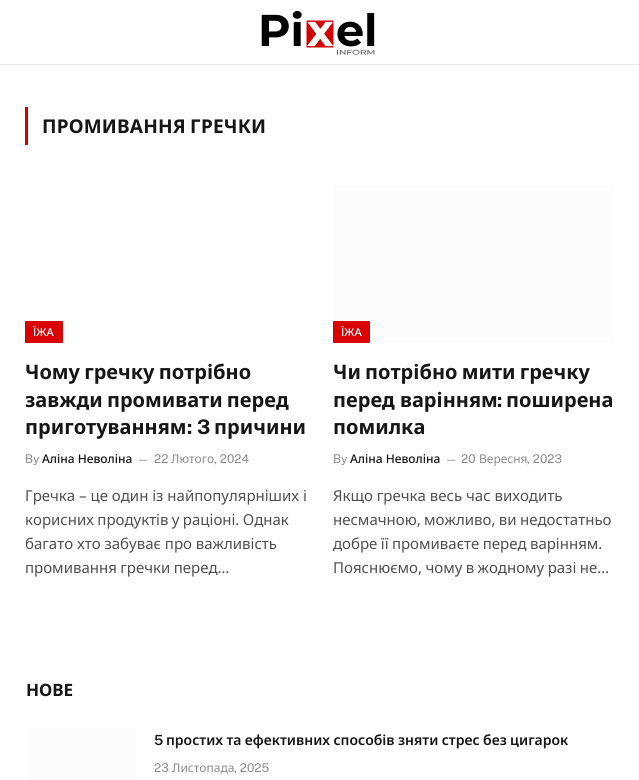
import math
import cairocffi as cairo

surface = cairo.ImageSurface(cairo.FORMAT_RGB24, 639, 780)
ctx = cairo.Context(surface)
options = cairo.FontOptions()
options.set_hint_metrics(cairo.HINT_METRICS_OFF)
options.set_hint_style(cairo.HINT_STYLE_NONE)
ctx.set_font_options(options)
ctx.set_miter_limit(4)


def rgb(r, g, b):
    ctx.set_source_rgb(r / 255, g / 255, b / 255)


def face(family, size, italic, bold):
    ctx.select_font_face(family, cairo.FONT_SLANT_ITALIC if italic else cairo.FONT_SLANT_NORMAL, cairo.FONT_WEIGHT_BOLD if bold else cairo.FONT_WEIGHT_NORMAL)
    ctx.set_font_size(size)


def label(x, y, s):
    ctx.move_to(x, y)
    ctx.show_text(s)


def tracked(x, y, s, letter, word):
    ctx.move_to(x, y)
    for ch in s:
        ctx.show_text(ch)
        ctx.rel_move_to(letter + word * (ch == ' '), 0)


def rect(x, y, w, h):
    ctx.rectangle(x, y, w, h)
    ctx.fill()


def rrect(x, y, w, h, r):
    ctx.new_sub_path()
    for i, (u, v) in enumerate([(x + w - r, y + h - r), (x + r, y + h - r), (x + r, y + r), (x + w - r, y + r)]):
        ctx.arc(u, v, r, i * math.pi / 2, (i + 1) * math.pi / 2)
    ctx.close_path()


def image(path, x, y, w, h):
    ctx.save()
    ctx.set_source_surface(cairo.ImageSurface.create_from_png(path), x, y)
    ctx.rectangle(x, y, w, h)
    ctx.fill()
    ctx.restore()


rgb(255, 255, 255)
ctx.paint()
rgb(232, 232, 232)
rect(0, 64, 639, 1)
image('image0.png', 261, 10, 114, 45)
rgb(219, 0, 0)
rect(25, 107, 3, 38)
face('Noto Sans', 19, 0, 1)
rgb(22, 22, 22)
tracked(42, 133, 'ПРОМИВАННЯ ГРЕЧКИ', 0.2, -1)
rgb(219, 0, 0)
rrect(25, 321, 38, 22, 1)
ctx.fill()
face('Noto Sans Medium', 11, 0, 0)
rgb(255, 255, 255)
label(33, 336, 'ЇЖА')
face('Noto Sans', 20, 0, 1)
rgb(22, 22, 22)
tracked(25, 379, 'Чому гречку потрібно', 0, -1)
tracked(25, 407, 'завжди промивати перед', 0, -1)
label(25, 434, 'приготуванням')
face('Public Sans', 20, 0, 1)
label(187, 434, ': 3')
face('Noto Sans', 20, 0, 1)
label(214, 434, 'причини')
face('Public Sans', 12, 0, 0)
rgb(138, 138, 138)
label(25, 463, 'By')
face('Noto Sans Medium', 12, 0, 0)
rgb(22, 22, 22)
label(42, 463, 'Аліна Неволіна')
face('Public Sans', 11, 0, 0)
rgb(138, 138, 138)
label(137, 463, '—')
face('Public Sans', 12, 0, 0)
label(154, 463, '22')
face('Noto Sans', 12, 0, 0)
label(171, 463, 'Лютого')
face('Public Sans', 12, 0, 0)
label(214, 463, ', 2024')
face('Noto Sans', 15, 0, 0)
rgb(80, 80, 80)
label(25, 501, 'Гречка – це один із найпопулярніших і')
tracked(25, 525, 'корисних продуктів у раціоні. Однак', 0, -0.5)
label(25, 549, 'багато хто забуває про важливість')
tracked(25, 573, 'промивання гречки перед…', 0, -0.5)
rgb(252, 252, 252)
rect(333, 185, 281, 158)
rgb(219, 0, 0)
rrect(333, 321, 37, 22, 1)
ctx.fill()
face('Noto Sans Medium', 11, 0, 0)
rgb(255, 255, 255)
label(341, 336, 'ЇЖА')
face('Noto Sans', 20, 0, 1)
rgb(22, 22, 22)
tracked(333, 379, 'Чи потрібно мити гречку', 0, -1)
label(333, 407, 'перед варінням')
face('Public Sans', 20, 0, 1)
label(497, 407, ':')
face('Noto Sans', 20, 0, 1)
label(506, 407, 'поширена')
label(333, 434, 'помилка')
face('Public Sans', 12, 0, 0)
rgb(138, 138, 138)
label(333, 463, 'By')
face('Noto Sans Medium', 12, 0, 0)
rgb(22, 22, 22)
label(350, 463, 'Аліна Неволіна')
face('Public Sans', 11, 0, 0)
rgb(138, 138, 138)
label(445, 463, '—')
face('Public Sans', 12, 0, 0)
label(461, 463, '20')
face('Noto Sans', 12, 0, 0)
label(479, 463, 'Вересня')
face('Public Sans', 12, 0, 0)
label(527, 463, ', 2023')
face('Noto Sans', 15, 0, 0)
rgb(80, 80, 80)
label(333, 501, 'Якщо гречка весь час виходить')
tracked(333, 525, 'несмачною, можливо, ви недостатньо', 0, -0.5)
tracked(333, 549, 'добре її промиваєте перед варінням.', 0, -0.5)
tracked(333, 573, 'Пояснюємо, чому в жодному разі не…', 0, -0.5)
face('Noto Sans', 17, 0, 1)
rgb(22, 22, 22)
label(26, 696, 'НОВЕ')
rgb(252, 252, 252)
rect(26, 728, 110, 52)
face('Public Sans SemiBold', 14, 0, 0)
rgb(22, 22, 22)
label(154, 745, '5')
face('Noto Sans SemiBold', 14, 0, 0)
tracked(166, 745, 'простих та ефективних способів зняти стрес без цигарок', 0, -0.25)
face('Public Sans', 12, 0, 0)
rgb(138, 138, 138)
label(154, 772, '23')
face('Noto Sans', 12, 0, 0)
label(172, 772, 'Листопада')
face('Public Sans', 12, 0, 0)
label(234, 772, ', 2025')
surface.write_to_png('render.png')
